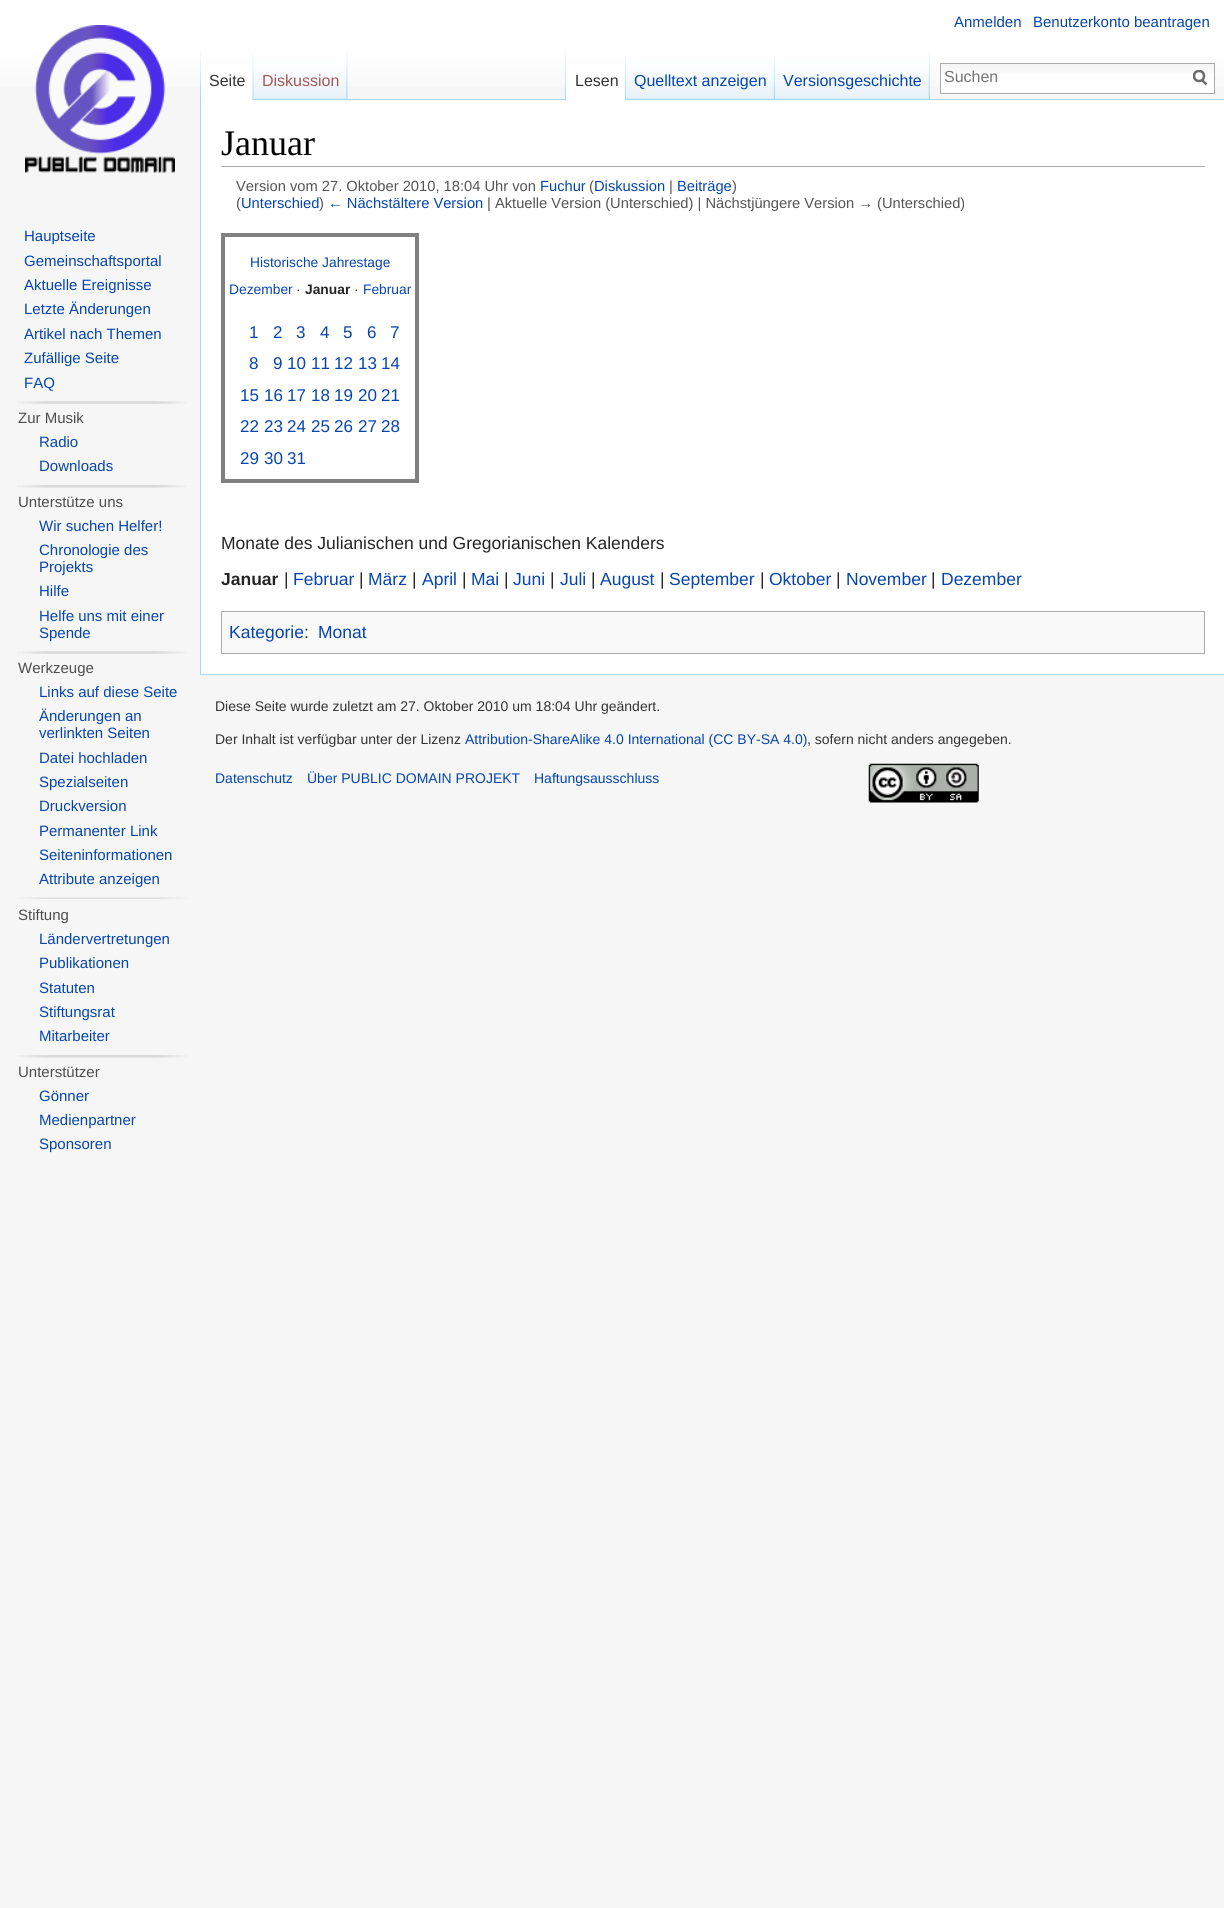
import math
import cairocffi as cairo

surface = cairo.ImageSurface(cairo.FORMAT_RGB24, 1224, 1908)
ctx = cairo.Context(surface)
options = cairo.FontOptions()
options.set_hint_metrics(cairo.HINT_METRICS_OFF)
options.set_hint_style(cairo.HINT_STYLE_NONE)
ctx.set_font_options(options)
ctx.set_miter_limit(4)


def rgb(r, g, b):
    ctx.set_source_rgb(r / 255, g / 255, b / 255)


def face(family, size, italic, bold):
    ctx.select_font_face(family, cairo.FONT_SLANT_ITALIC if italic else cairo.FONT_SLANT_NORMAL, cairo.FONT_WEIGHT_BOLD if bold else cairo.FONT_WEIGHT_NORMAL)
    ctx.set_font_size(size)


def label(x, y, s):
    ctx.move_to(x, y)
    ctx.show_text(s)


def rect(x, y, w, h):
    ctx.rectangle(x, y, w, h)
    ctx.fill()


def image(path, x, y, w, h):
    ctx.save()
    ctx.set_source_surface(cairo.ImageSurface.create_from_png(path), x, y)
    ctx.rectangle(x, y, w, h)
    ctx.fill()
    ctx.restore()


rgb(246, 246, 246)
ctx.paint()
gradient = cairo.LinearGradient(613, 0, 613, 100)
gradient.add_color_stop_rgba(0.5, 1, 1, 1, 1)
gradient.add_color_stop_rgba(1, 0.965, 0.965, 0.965, 1)
ctx.set_source(gradient)
rect(0, 0, 1224, 86)
face('Liberation Sans', 15, 0, 0)
rgb(6, 69, 173)
label(954, 27, 'Anmelden')
label(1033, 27, 'Benutzerkonto beantragen')
image('image0.png', 200, 50, 1, 49)
rgb(255, 255, 255)
rect(201, 64, 53, 36)
image('image1.png', 252, 52, 2, 48)
face('Liberation Sans', 16, 0, 0)
rgb(51, 51, 51)
label(209, 86, 'Seite')
rgb(243, 243, 243)
rect(347, 50, 1, 50)
image('image2.png', 253, 50, 95, 50)
image('image3.png', 346, 52, 2, 48)
rgb(165, 88, 88)
label(262, 86, 'Diskussion')
image('image0.png', 565, 50, 1, 49)
rgb(167, 215, 249)
rect(348, 99, 876, 1)
rgb(255, 255, 255)
rect(566, 64, 61, 36)
image('image4.png', 625, 50, 2, 50)
rgb(51, 51, 51)
label(575, 86, 'Lesen')
image('image5.png', 626, 50, 149, 50)
image('image6.png', 773, 50, 2, 49)
rgb(6, 69, 173)
label(634, 86, 'Quelltext anzeigen')
image('image7.png', 775, 50, 155, 50)
image('image6.png', 928, 50, 2, 49)
label(783, 86, 'Versionsgeschichte')
rgb(255, 255, 255)
rect(941, 74, 273, 19)
image('image8.png', 941, 64, 273, 10)
ctx.rectangle(940.5, 63.5, 274, 30)
rgb(170, 170, 170)
ctx.set_line_width(1)
ctx.stroke()
rgb(117, 117, 117)
label(944, 82, 'Suchen')
ctx.new_path()
ctx.move_to(1206.5, 84.5)
ctx.line_to(1201.5, 79.5)
rgb(108, 108, 108)
ctx.set_line_width(2.5)
ctx.stroke()
ctx.save()
ctx.rectangle(1193, 70, 15, 16)
ctx.clip()
ctx.arc(1199, 76, 5, 0, 2 * math.pi)
ctx.stroke()
ctx.restore()
image('image9.png', 25, 25, 150, 148)
face('Liberation Sans', 15, 0, 0)
rgb(6, 69, 173)
label(24, 241, 'Hauptseite')
label(24, 266, 'Gemeinschaftsportal')
label(24, 290, 'Aktuelle Ereignisse')
label(24, 314, 'Letzte Änderungen')
label(24, 339, 'Artikel nach Themen')
label(24, 363, 'Zufällige Seite')
label(24, 388, 'FAQ')
image('image10.png', 17, 401, 170, 3)
rgb(77, 77, 77)
label(18, 423, 'Zur Musik')
rgb(6, 69, 173)
label(39, 447, 'Radio')
label(39, 471, 'Downloads')
image('image11.png', 17, 485, 170, 3)
rgb(77, 77, 77)
label(18, 507, 'Unterstütze uns')
rgb(6, 69, 173)
label(39, 531, 'Wir suchen Helfer!')
label(39, 555, 'Chronologie des')
label(39, 572, 'Projekts')
label(39, 596, 'Hilfe')
label(39, 621, 'Helfe uns mit einer')
label(39, 638, 'Spende')
image('image10.png', 17, 651, 170, 3)
rgb(77, 77, 77)
label(18, 673, 'Werkzeuge')
rgb(6, 69, 173)
label(39, 697, 'Links auf diese Seite')
label(39, 721, 'Änderungen an')
label(39, 738, 'verlinkten Seiten')
label(39, 763, 'Datei hochladen')
label(39, 787, 'Spezialseiten')
label(39, 811, 'Druckversion')
label(39, 836, 'Permanenter Link')
label(39, 860, 'Seiteninformationen')
label(39, 884, 'Attribute anzeigen')
image('image12.png', 17, 897, 170, 2)
rgb(77, 77, 77)
label(18, 920, 'Stiftung')
rgb(6, 69, 173)
label(39, 944, 'Ländervertretungen')
label(39, 968, 'Publikationen')
label(39, 993, 'Statuten')
label(39, 1017, 'Stiftungsrat')
label(39, 1041, 'Mitarbeiter')
image('image11.png', 17, 1055, 170, 3)
rgb(77, 77, 77)
label(18, 1077, 'Unterstützer')
rgb(6, 69, 173)
label(39, 1101, 'Gönner')
label(39, 1125, 'Medienpartner')
label(39, 1149, 'Sponsoren')
rgb(255, 255, 255)
rect(201, 100, 1023, 574)
rgb(167, 215, 249)
rect(200, 674, 1024, 1)
rect(200, 99, 1, 576)
rgb(170, 170, 170)
rect(221, 166, 984, 1)
face('Liberation Serif', 36, 0, 0)
rgb(0, 0, 0)
label(221, 155, 'Januar')
face('Liberation Sans', 14.7, 0, 0)
rgb(84, 84, 84)
label(236, 191, 'Version vom 27. Oktober 2010, 18:04 Uhr von')
rgb(6, 69, 173)
label(540, 191, 'Fuchur')
rgb(84, 84, 84)
label(589, 191, '(')
rgb(6, 69, 173)
label(594, 191, 'Diskussion')
rgb(84, 84, 84)
label(669, 191, '|')
rgb(6, 69, 173)
label(677, 191, 'Beiträge')
rgb(84, 84, 84)
label(732, 191, ')')
label(236, 208, '(')
rgb(6, 69, 173)
label(241, 208, 'Unterschied')
rgb(84, 84, 84)
label(319, 208, ')')
rgb(6, 69, 173)
label(328, 208, '← Nächstältere Version')
rgb(84, 84, 84)
label(487, 208, '| Aktuelle Version (Unterschied) | Nächstjüngere Version → (Unterschied)')
ctx.rectangle(223, 235, 194, 246)
rgb(128, 128, 128)
ctx.set_line_width(4)
ctx.stroke()
face('Liberation Sans', 13.8, 0, 0)
rgb(6, 69, 173)
label(250, 267, 'Historische Jahrestage')
label(229, 294, 'Dezember')
rgb(37, 37, 37)
label(296, 294, '·')
face('Liberation Sans', 13.8, 0, 1)
label(305, 294, 'Januar')
face('Liberation Sans', 13.8, 0, 0)
label(354, 294, '·')
rgb(6, 69, 173)
label(363, 294, 'Februar')
face('Liberation Sans', 17, 0, 0)
label(249, 338, '1')
label(273, 338, '2')
label(296, 338, '3')
label(320, 338, '4')
label(343, 338, '5')
label(367, 338, '6')
label(390, 338, '7')
label(249, 369, '8')
label(273, 369, '9')
label(287, 369, '10')
label(311, 369, '11')
label(334, 369, '12')
label(358, 369, '13')
label(381, 369, '14')
label(240, 401, '15')
label(264, 401, '16')
label(287, 401, '17')
label(311, 401, '18')
label(334, 401, '19')
label(358, 401, '20')
label(381, 401, '21')
label(240, 432, '22')
label(264, 432, '23')
label(287, 432, '24')
label(311, 432, '25')
label(334, 432, '26')
label(358, 432, '27')
label(381, 432, '28')
label(240, 464, '29')
label(264, 464, '30')
label(287, 464, '31')
face('Liberation Sans', 17.5, 0, 0)
rgb(37, 37, 37)
label(221, 549, 'Monate des Julianischen und Gregorianischen Kalenders')
face('Liberation Sans', 17.5, 0, 1)
label(221, 585, 'Januar')
face('Liberation Sans', 17.5, 0, 0)
label(284, 585, '|')
rgb(6, 69, 173)
label(293, 585, 'Februar')
rgb(37, 37, 37)
label(359, 585, '|')
rgb(6, 69, 173)
label(368, 585, 'März')
rgb(37, 37, 37)
label(412, 585, '|')
rgb(6, 69, 173)
label(422, 585, 'April')
rgb(37, 37, 37)
label(462, 585, '|')
rgb(6, 69, 173)
label(471, 585, 'Mai')
rgb(37, 37, 37)
label(504, 585, '|')
rgb(6, 69, 173)
label(513, 585, 'Juni')
rgb(37, 37, 37)
label(550, 585, '|')
rgb(6, 69, 173)
label(560, 585, 'Juli')
rgb(37, 37, 37)
label(591, 585, '|')
rgb(6, 69, 173)
label(600, 585, 'August')
rgb(37, 37, 37)
label(660, 585, '|')
rgb(6, 69, 173)
label(669, 585, 'September')
rgb(37, 37, 37)
label(760, 585, '|')
rgb(6, 69, 173)
label(769, 585, 'Oktober')
rgb(37, 37, 37)
label(836, 585, '|')
rgb(6, 69, 173)
label(846, 585, 'November')
rgb(37, 37, 37)
label(931, 585, '|')
rgb(6, 69, 173)
label(941, 585, 'Dezember')
rgb(249, 249, 249)
ctx.rectangle(221.5, 611.5, 983, 42)
ctx.fill_preserve()
rgb(170, 170, 170)
ctx.set_line_width(1)
ctx.stroke()
rgb(6, 69, 173)
label(229, 638, 'Kategorie')
rgb(37, 37, 37)
label(304, 638, ':')
rgb(6, 69, 173)
label(318, 638, 'Monat')
face('Liberation Sans', 14, 0, 0)
rgb(51, 51, 51)
label(215, 711, 'Diese Seite wurde zuletzt am 27. Oktober 2010 um 18:04 Uhr geändert.')
label(215, 744, 'Der Inhalt ist verfügbar unter der Lizenz')
rgb(6, 69, 173)
label(465, 744, 'Attribution-ShareAlike 4.0 International (CC BY-SA 4.0)')
rgb(51, 51, 51)
label(807, 744, ', sofern nicht anders angegeben.')
rgb(6, 69, 173)
label(215, 783, 'Datenschutz')
label(307, 783, 'Über PUBLIC DOMAIN PROJEKT')
label(534, 783, 'Haftungsausschluss')
image('image13.png', 868, 763, 111, 40)
surface.write_to_png('render.png')
